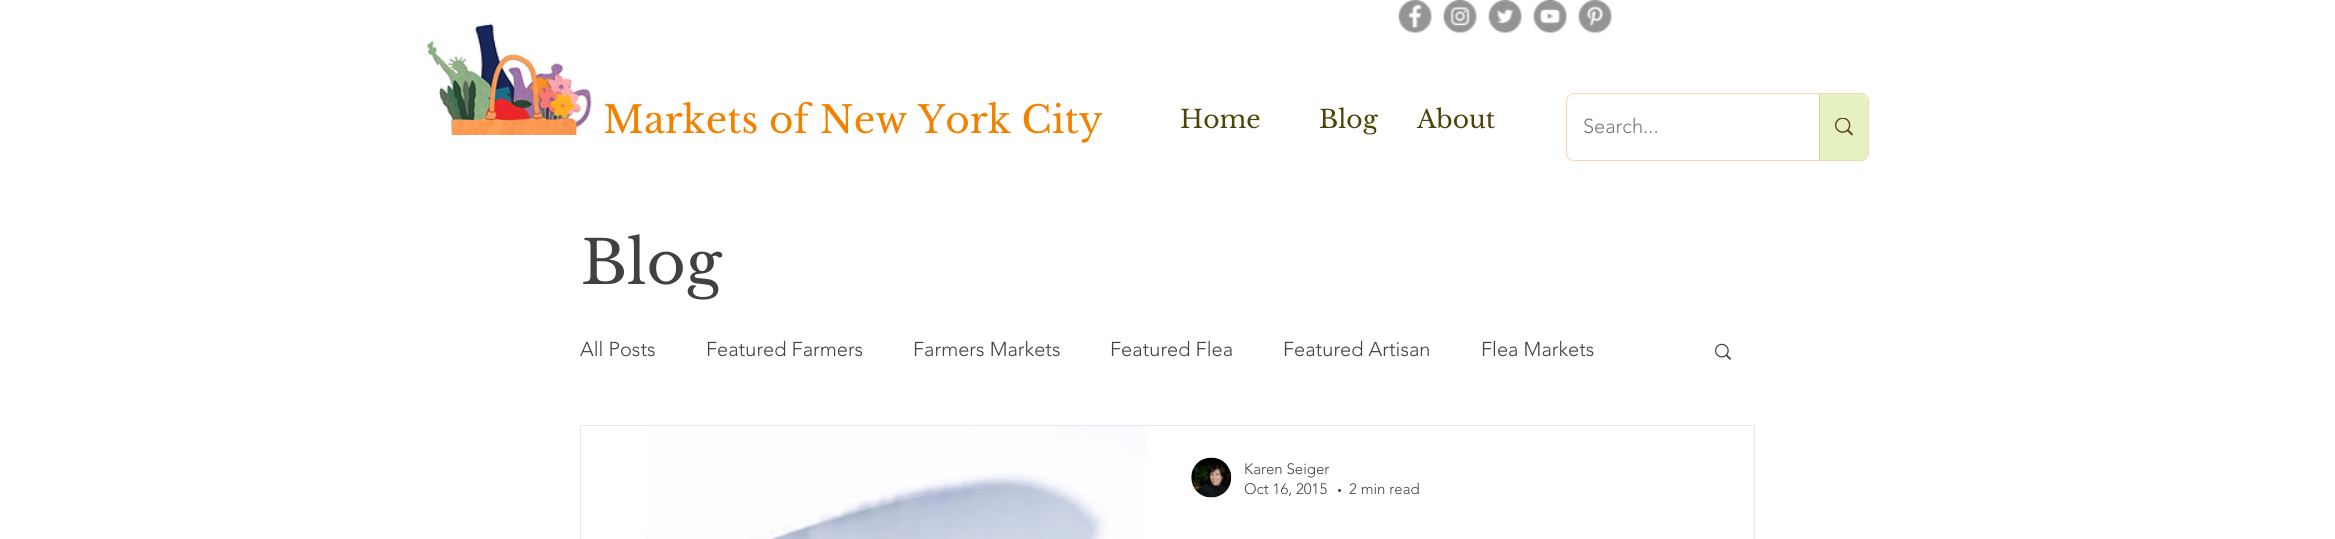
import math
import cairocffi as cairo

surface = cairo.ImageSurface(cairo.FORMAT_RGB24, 2335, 539)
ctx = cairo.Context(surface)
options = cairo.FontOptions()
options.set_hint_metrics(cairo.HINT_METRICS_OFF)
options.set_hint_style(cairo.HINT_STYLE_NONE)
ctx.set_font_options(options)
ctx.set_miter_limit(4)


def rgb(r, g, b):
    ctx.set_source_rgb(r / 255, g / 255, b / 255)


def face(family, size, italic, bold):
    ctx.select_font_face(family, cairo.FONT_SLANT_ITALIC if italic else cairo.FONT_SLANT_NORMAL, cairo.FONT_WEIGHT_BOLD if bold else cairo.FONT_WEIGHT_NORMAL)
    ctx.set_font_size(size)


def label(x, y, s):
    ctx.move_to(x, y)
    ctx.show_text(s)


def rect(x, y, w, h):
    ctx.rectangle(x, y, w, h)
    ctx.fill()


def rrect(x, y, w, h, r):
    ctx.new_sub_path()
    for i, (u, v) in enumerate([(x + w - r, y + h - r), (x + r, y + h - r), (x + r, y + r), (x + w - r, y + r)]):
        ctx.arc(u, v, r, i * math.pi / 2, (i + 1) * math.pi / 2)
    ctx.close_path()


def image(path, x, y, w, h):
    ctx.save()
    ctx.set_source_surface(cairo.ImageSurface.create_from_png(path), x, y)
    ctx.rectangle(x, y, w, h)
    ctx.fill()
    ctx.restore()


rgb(255, 255, 255)
ctx.paint()
image('image0.png', 1398, 0, 34, 33)
image('image1.png', 1443, 0, 34, 33)
image('image2.png', 1488, 0, 34, 33)
image('image3.png', 1533, 0, 34, 33)
image('image4.png', 1578, 0, 34, 33)
image('image5.png', 426, 23, 166, 112)
face('Libre Baskerville', 37.5, 0, 0)
rgb(242, 129, 0)
label(603, 133, 'Markets of New York City')
face('Libre Baskerville', 25, 0, 0)
rgb(76, 69, 8)
label(1180, 128, 'Home')
label(1319, 128, 'Blog')
label(1417, 128, 'About')
rrect(1566.5, 93.5, 302, 67, 7.5)
rgb(252, 212, 177)
ctx.set_line_width(1)
ctx.stroke()
rgb(255, 255, 255)
rrect(1568, 94, 300, 66, 6)
ctx.fill()
face('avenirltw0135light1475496 Light', 20, 0, 0)
rgb(120, 120, 120)
label(1583, 133, 'Search...')
ctx.set_source_rgba(0.729, 0.855, 0.333, 0.36)
ctx.new_path()
ctx.move_to(1819, 94)
ctx.line_to(1862, 94)
ctx.curve_to(1865.5, 94, 1868, 96.5, 1868, 100)
ctx.line_to(1868, 154)
ctx.curve_to(1868, 157.5, 1865.5, 160, 1862, 160)
ctx.line_to(1819, 160)
ctx.close_path()
ctx.fill()
rgb(236, 203, 136)
rect(1819, 94, 1, 66)
image('image6.png', 1835, 118, 18, 18)
face('Libre Baskerville', 60, 0, 0)
rgb(65, 65, 65)
label(581, 284, 'Blog')
face('avenirltw0135light1475496 Light', 20, 0, 0)
label(580, 356, 'All Posts')
label(706, 356, 'Featured Farmers')
label(913, 356, 'Farmers Markets')
label(1110, 356, 'Featured Flea')
label(1283, 356, 'Featured Artisan')
label(1481, 356, 'Flea Markets')
image('image7.png', 1715, 343, 17, 17)
ctx.rectangle(580.5, 425.5, 1174, 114)
rgb(232, 230, 230)
ctx.stroke()
image('image8.png', 647, 426, 2, 113)
image('image9.png', 649, 426, 497, 113)
image('image10.png', 1191, 457, 41, 41)
face('avenirltw0135light1475496 Light', 15, 0, 0)
rgb(65, 65, 65)
label(1244, 474, 'Karen Seiger')
label(1244, 494, 'Oct 16, 2015')
ctx.new_path()
ctx.arc(1339.5, 490.5, 1.5, 0, 2 * math.pi)
ctx.fill()
label(1349, 494, '2 min read')
surface.write_to_png('render.png')
